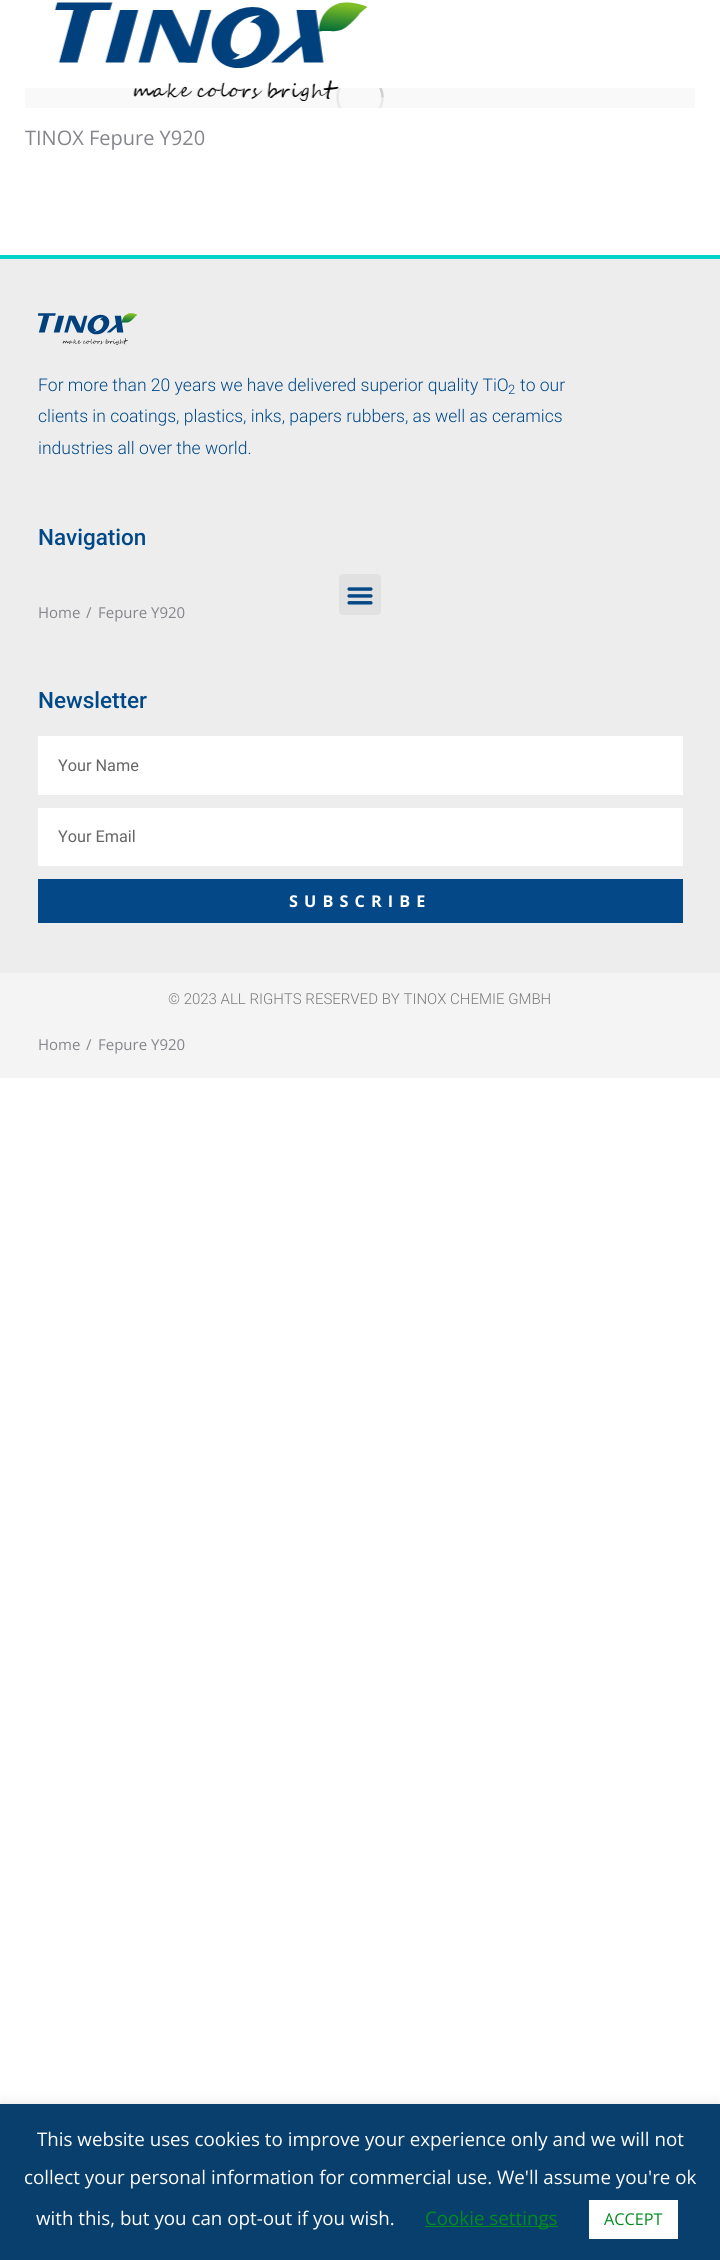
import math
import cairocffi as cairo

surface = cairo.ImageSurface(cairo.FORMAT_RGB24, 720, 2260)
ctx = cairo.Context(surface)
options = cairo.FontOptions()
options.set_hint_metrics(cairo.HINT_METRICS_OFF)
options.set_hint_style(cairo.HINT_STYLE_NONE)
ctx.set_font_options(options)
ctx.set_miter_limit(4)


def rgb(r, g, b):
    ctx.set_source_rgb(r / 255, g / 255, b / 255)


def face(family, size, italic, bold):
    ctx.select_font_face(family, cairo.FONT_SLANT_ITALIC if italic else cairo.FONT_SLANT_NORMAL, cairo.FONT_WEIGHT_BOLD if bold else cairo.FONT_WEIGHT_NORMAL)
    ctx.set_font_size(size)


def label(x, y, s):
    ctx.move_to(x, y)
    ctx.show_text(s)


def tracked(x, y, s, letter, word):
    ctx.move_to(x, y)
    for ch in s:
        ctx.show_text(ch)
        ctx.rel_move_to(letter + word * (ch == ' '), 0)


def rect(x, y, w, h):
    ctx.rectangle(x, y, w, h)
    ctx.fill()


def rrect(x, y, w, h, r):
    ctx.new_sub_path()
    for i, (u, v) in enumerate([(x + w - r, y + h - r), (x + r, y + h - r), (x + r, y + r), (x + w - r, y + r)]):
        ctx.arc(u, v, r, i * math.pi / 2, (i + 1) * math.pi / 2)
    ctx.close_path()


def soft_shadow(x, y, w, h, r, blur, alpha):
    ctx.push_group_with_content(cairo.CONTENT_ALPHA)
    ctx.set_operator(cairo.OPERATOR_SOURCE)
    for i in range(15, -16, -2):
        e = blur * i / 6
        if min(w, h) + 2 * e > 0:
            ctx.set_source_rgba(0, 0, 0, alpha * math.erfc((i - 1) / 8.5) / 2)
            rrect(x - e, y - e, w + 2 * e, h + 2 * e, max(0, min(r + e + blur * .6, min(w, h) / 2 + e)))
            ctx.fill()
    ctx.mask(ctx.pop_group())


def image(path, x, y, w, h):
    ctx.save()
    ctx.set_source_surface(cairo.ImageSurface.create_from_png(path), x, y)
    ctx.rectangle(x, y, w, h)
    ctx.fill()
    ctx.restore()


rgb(255, 255, 255)
ctx.paint()
rgb(249, 249, 249)
rect(25, 88, 670, 20)
ctx.save()
ctx.rectangle(336, 88, 48, 20)
ctx.clip()
ctx.arc(360, 97.5, 22.5, 0, 2 * math.pi)
rgb(233, 233, 234)
ctx.set_line_width(2.5)
ctx.stroke()
ctx.restore()
image('image0.png', 54, 2, 314, 99)
ctx.save()
ctx.rectangle(336, 88, 48, 20)
ctx.clip()
ctx.new_path()
ctx.move_to(382.5, 97.5)
ctx.curve_to(382.5, 85, 372.5, 75, 360, 75)
ctx.set_source_rgba(0.522, 0.525, 0.549, 0.25)
ctx.set_line_width(2.5)
ctx.stroke()
ctx.restore()
face('Open Sans', 20, 0, 0)
rgb(133, 134, 140)
label(25, 145, 'TINOX Fepure Y920')
rgb(237, 237, 237)
rect(0, 259, 720, 714)
rgb(2, 211, 201)
rect(0, 255, 720, 4)
image('image1.png', 38, 313, 100, 32)
face('Roboto Light', 17.5, 0, 0)
rgb(0, 72, 135)
label(38, 391, 'For more than 20 years we have delivered superior quality TiO')
face('Roboto Light', 13, 0, 0)
label(508, 394, '2')
face('Roboto Light', 17.5, 0, 0)
label(520, 391, 'to our')
label(38, 422, 'clients in coatings, plastics, inks, papers rubbers, as well as ceramics')
label(38, 454, 'industries all over the world.')
face('Roboto Medium', 22.5, 0, 0)
label(38, 545, 'Navigation')
face('Open Sans', 15, 0, 0)
rgb(133, 134, 140)
label(38, 618, 'Home')
label(86, 618, '/')
label(98, 618, 'Fepure Y920')
rgb(225, 225, 225)
rrect(339, 574, 42, 41, 4)
ctx.fill()
image('image2.png', 347, 587, 26, 18)
face('Roboto Medium', 22.5, 0, 0)
rgb(0, 72, 135)
label(38, 708, 'Newsletter')
rgb(255, 255, 255)
rect(38, 736, 645, 59)
face('Roboto', 16.25, 0, 0)
rgb(102, 102, 102)
label(58, 771, 'Your Name')
rgb(255, 255, 255)
rect(38, 808, 645, 58)
rgb(102, 102, 102)
label(58, 842, 'Your Email')
rgb(4, 72, 135)
rect(38, 879, 645, 44)
face('Open Sans', 16.25, 0, 1)
rgb(255, 255, 255)
tracked(289, 907, 'SUBSCRIBE', 6.1, 0)
rgb(244, 244, 244)
rect(0, 973, 720, 105)
face('Roboto Light', 15, 0, 0)
rgb(122, 122, 122)
label(168, 1004, '© 2023 ALL RIGHTS RESERVED BY TINOX CHEMIE GMBH')
face('Open Sans', 15, 0, 0)
rgb(133, 134, 140)
label(38, 1050, 'Home')
label(86, 1050, '/')
label(98, 1050, 'Fepure Y920')
rgb(172, 171, 171)
soft_shadow(0, 2103, 720, 156, 0, 6, 0.3)
rgb(9, 63, 109)
rect(0, 2104, 720, 156)
face('Open Sans', 18.75, 0, 0)
rgb(255, 255, 255)
label(37, 2146, 'This website uses cookies to improve your experience only and we will not')
label(24, 2184, 'collect your personal information for commercial use. We\'ll assume you\'re ok')
label(36, 2225, 'with this, but you can opt-out if you wish.')
rgb(0, 140, 30)
rect(425, 2226, 133, 1)
label(425, 2225, 'Cookie settings')
rgb(255, 255, 255)
rect(589, 2200, 89, 39)
face('Open Sans', 16.25, 0, 0)
rgb(0, 140, 30)
label(604, 2225, 'ACCEPT')
surface.write_to_png('render.png')
